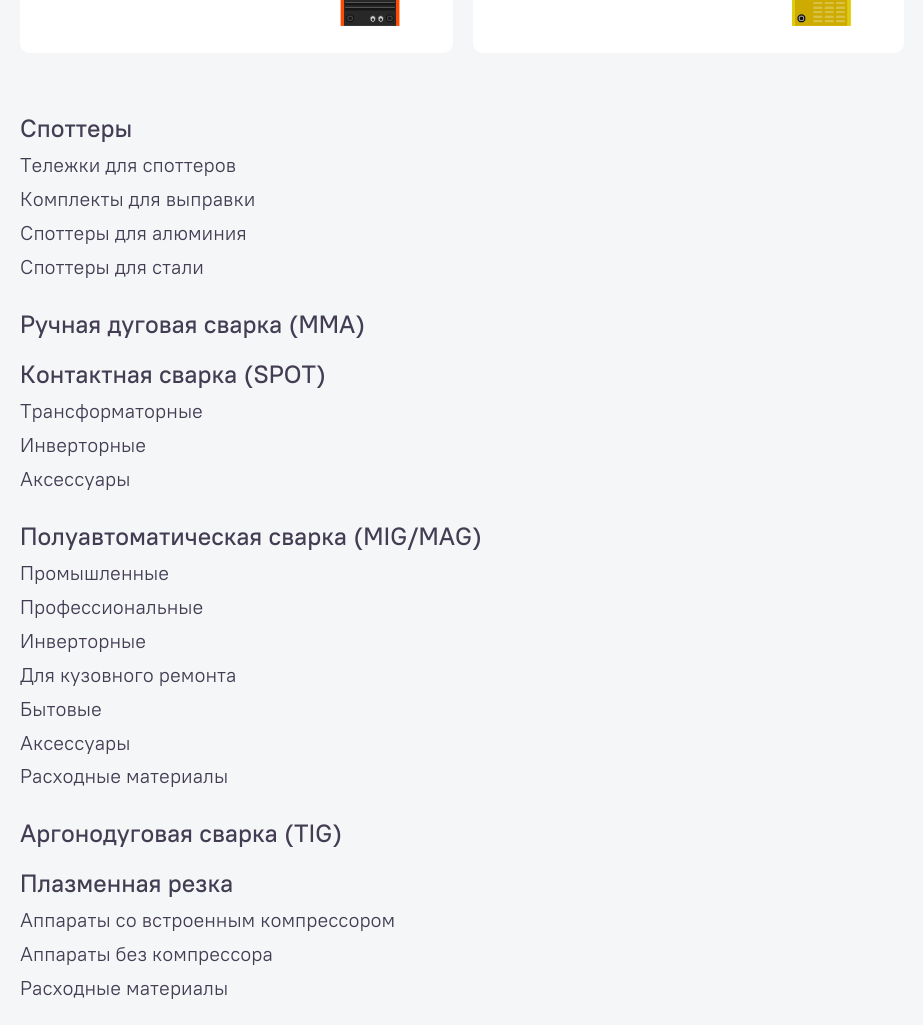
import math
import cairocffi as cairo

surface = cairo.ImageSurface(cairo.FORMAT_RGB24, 923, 1025)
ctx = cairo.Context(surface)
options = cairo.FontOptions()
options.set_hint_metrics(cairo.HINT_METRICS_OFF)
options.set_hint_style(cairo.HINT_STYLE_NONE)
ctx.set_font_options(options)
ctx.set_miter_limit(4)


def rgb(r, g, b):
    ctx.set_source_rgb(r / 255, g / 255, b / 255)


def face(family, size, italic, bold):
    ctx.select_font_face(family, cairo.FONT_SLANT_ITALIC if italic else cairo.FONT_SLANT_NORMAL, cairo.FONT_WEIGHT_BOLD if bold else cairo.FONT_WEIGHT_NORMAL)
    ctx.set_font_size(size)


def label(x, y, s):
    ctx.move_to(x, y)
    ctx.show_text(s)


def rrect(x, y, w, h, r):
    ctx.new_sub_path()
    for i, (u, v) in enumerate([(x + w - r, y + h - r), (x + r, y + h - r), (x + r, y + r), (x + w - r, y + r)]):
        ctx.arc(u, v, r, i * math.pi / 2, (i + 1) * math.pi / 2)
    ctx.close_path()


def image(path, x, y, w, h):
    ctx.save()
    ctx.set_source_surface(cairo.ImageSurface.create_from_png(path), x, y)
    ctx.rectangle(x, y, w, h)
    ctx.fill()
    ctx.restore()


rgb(245, 246, 247)
ctx.paint()
rgb(255, 255, 255)
rrect(20, -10, 433, 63, 10)
ctx.fill()
image('image0.png', 340, 0, 60, 26)
rrect(473, -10, 431, 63, 10)
ctx.fill()
image('image1.png', 792, 0, 59, 26)
face('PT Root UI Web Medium', 25, 0, 0)
rgb(67, 61, 84)
label(20, 137, 'Споттеры')
face('PT Root UI Web', 20, 0, 0)
label(20, 172, 'Тележки для споттеров')
label(20, 206, 'Комплекты для выправки')
label(20, 240, 'Споттеры для алюминия')
label(20, 274, 'Споттеры для стали')
face('PT Root UI Web Medium', 25, 0, 0)
label(20, 333, 'Ручная дуговая сварка (MMA)')
label(20, 383, 'Контактная сварка (SPOT)')
face('PT Root UI Web', 20, 0, 0)
label(20, 418, 'Трансформаторные')
label(20, 452, 'Инверторные')
label(20, 486, 'Аксессуары')
face('PT Root UI Web Medium', 25, 0, 0)
label(20, 545, 'Полуавтоматическая сварка (MIG/MAG)')
face('PT Root UI Web', 20, 0, 0)
label(20, 580, 'Промышленные')
label(20, 614, 'Профессиональные')
label(20, 648, 'Инверторные')
label(20, 682, 'Для кузовного ремонта')
label(20, 716, 'Бытовые')
label(20, 750, 'Аксессуары')
label(20, 783, 'Расходные материалы')
face('PT Root UI Web Medium', 25, 0, 0)
label(20, 842, 'Аргонодуговая сварка (TIG)')
label(20, 892, 'Плазменная резка')
face('PT Root UI Web', 20, 0, 0)
label(20, 927, 'Аппараты со встроенным компрессором')
label(20, 961, 'Аппараты без компрессора')
label(20, 995, 'Расходные материалы')
surface.write_to_png('render.png')
